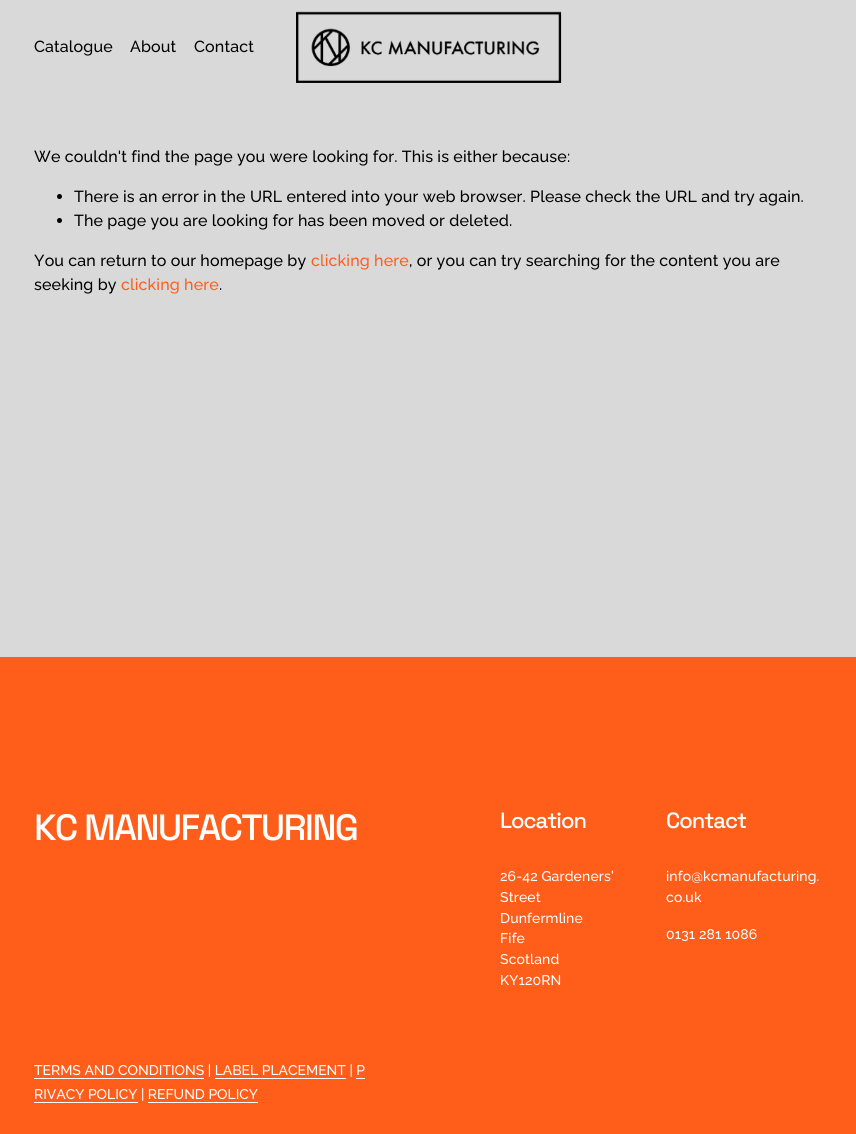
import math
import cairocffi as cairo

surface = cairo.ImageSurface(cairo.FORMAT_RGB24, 856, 1134)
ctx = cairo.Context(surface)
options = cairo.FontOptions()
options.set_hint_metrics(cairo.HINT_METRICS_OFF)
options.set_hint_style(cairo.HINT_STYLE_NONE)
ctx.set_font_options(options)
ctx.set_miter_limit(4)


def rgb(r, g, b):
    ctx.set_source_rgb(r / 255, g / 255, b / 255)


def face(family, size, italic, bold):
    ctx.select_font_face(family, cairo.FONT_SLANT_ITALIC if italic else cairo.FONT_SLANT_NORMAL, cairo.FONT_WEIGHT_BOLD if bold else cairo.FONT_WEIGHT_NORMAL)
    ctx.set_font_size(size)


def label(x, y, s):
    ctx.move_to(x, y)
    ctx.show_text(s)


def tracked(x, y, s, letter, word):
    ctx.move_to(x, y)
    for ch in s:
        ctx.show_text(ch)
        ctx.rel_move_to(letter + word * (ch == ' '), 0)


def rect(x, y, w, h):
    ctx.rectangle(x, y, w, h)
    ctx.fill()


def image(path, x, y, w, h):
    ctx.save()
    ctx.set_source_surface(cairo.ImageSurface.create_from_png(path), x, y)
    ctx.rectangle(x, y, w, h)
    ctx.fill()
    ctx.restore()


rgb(218, 217, 217)
ctx.paint()
face('Raleway Medium', 16, 0, 0)
rgb(0, 0, 0)
tracked(34, 52, 'Catalogue', 0.15, 0)
tracked(130, 52, 'About', 0.15, 0)
tracked(194, 52, 'Contact', 0.15, 0)
image('image0.png', 296, 11, 266, 72)
tracked(34, 162, 'We couldn\'t find the page you were looking for. This is either because:', 0.15, 0)
ctx.new_path()
ctx.arc(59.5, 196.5, 2.5, 0, 2 * math.pi)
ctx.fill()
tracked(74, 202, 'There is an error in the URL entered into your web browser. Please check the URL and try again.', 0.15, 0)
ctx.new_path()
ctx.arc(59.5, 220.5, 2.5, 0, 2 * math.pi)
ctx.fill()
tracked(74, 226, 'The page you are looking for has been moved or deleted.', 0.15, 0)
tracked(34, 266, 'You can return to our homepage by', 0.15, 0)
rgb(255, 94, 26)
tracked(311, 266, 'clicking here', 0.15, 0)
rgb(0, 0, 0)
tracked(409, 266, ', or you can try searching for the content you are', 0.15, 0)
tracked(34, 290, 'seeking by', 0.15, 0)
rgb(255, 94, 26)
tracked(121, 290, 'clicking here', 0.15, 0)
rgb(0, 0, 0)
tracked(219, 290, '.', 0.15, 0)
rgb(255, 94, 26)
rect(0, 657, 856, 477)
face('Space Grotesk Medium', 36.5, 0, 0)
rgb(255, 255, 255)
tracked(34, 840, 'KC MANUFACTURING', -1.8, 0)
face('Space Grotesk Medium', 22, 0, 0)
tracked(500, 828, 'Location', -1, 0)
face('Raleway Medium', 13.95, 0, 0)
tracked(500, 881, '26-42 Gardeners’', 0.15, 0)
tracked(500, 902, 'Street', 0.15, 0)
tracked(500, 923, 'Dunfermline', 0.15, 0)
tracked(500, 943, 'Fife', 0.15, 0)
tracked(500, 964, 'Scotland', 0.15, 0)
tracked(500, 985, 'KY120RN', 0.15, 0)
face('Space Grotesk Medium', 22, 0, 0)
tracked(666, 828, 'Contact', -1, 0)
face('Raleway Medium', 13.95, 0, 0)
tracked(666, 881, 'info@kcmanufacturing.', 0.15, 0)
tracked(666, 902, 'co.uk', 0.15, 0)
tracked(666, 939, '0131 281 1086', 0.15, 0)
label(34, 1075, 'TERMS AND CONDITIONS | LABEL PLACEMENT | P')
rect(34, 1078, 170, 1)
rect(215, 1078, 131, 1)
rect(356, 1078, 9, 1)
label(34, 1099, 'RIVACY POLICY | REFUND POLICY')
rect(34, 1102, 104, 1)
rect(148, 1102, 110, 1)
surface.write_to_png('render.png')
